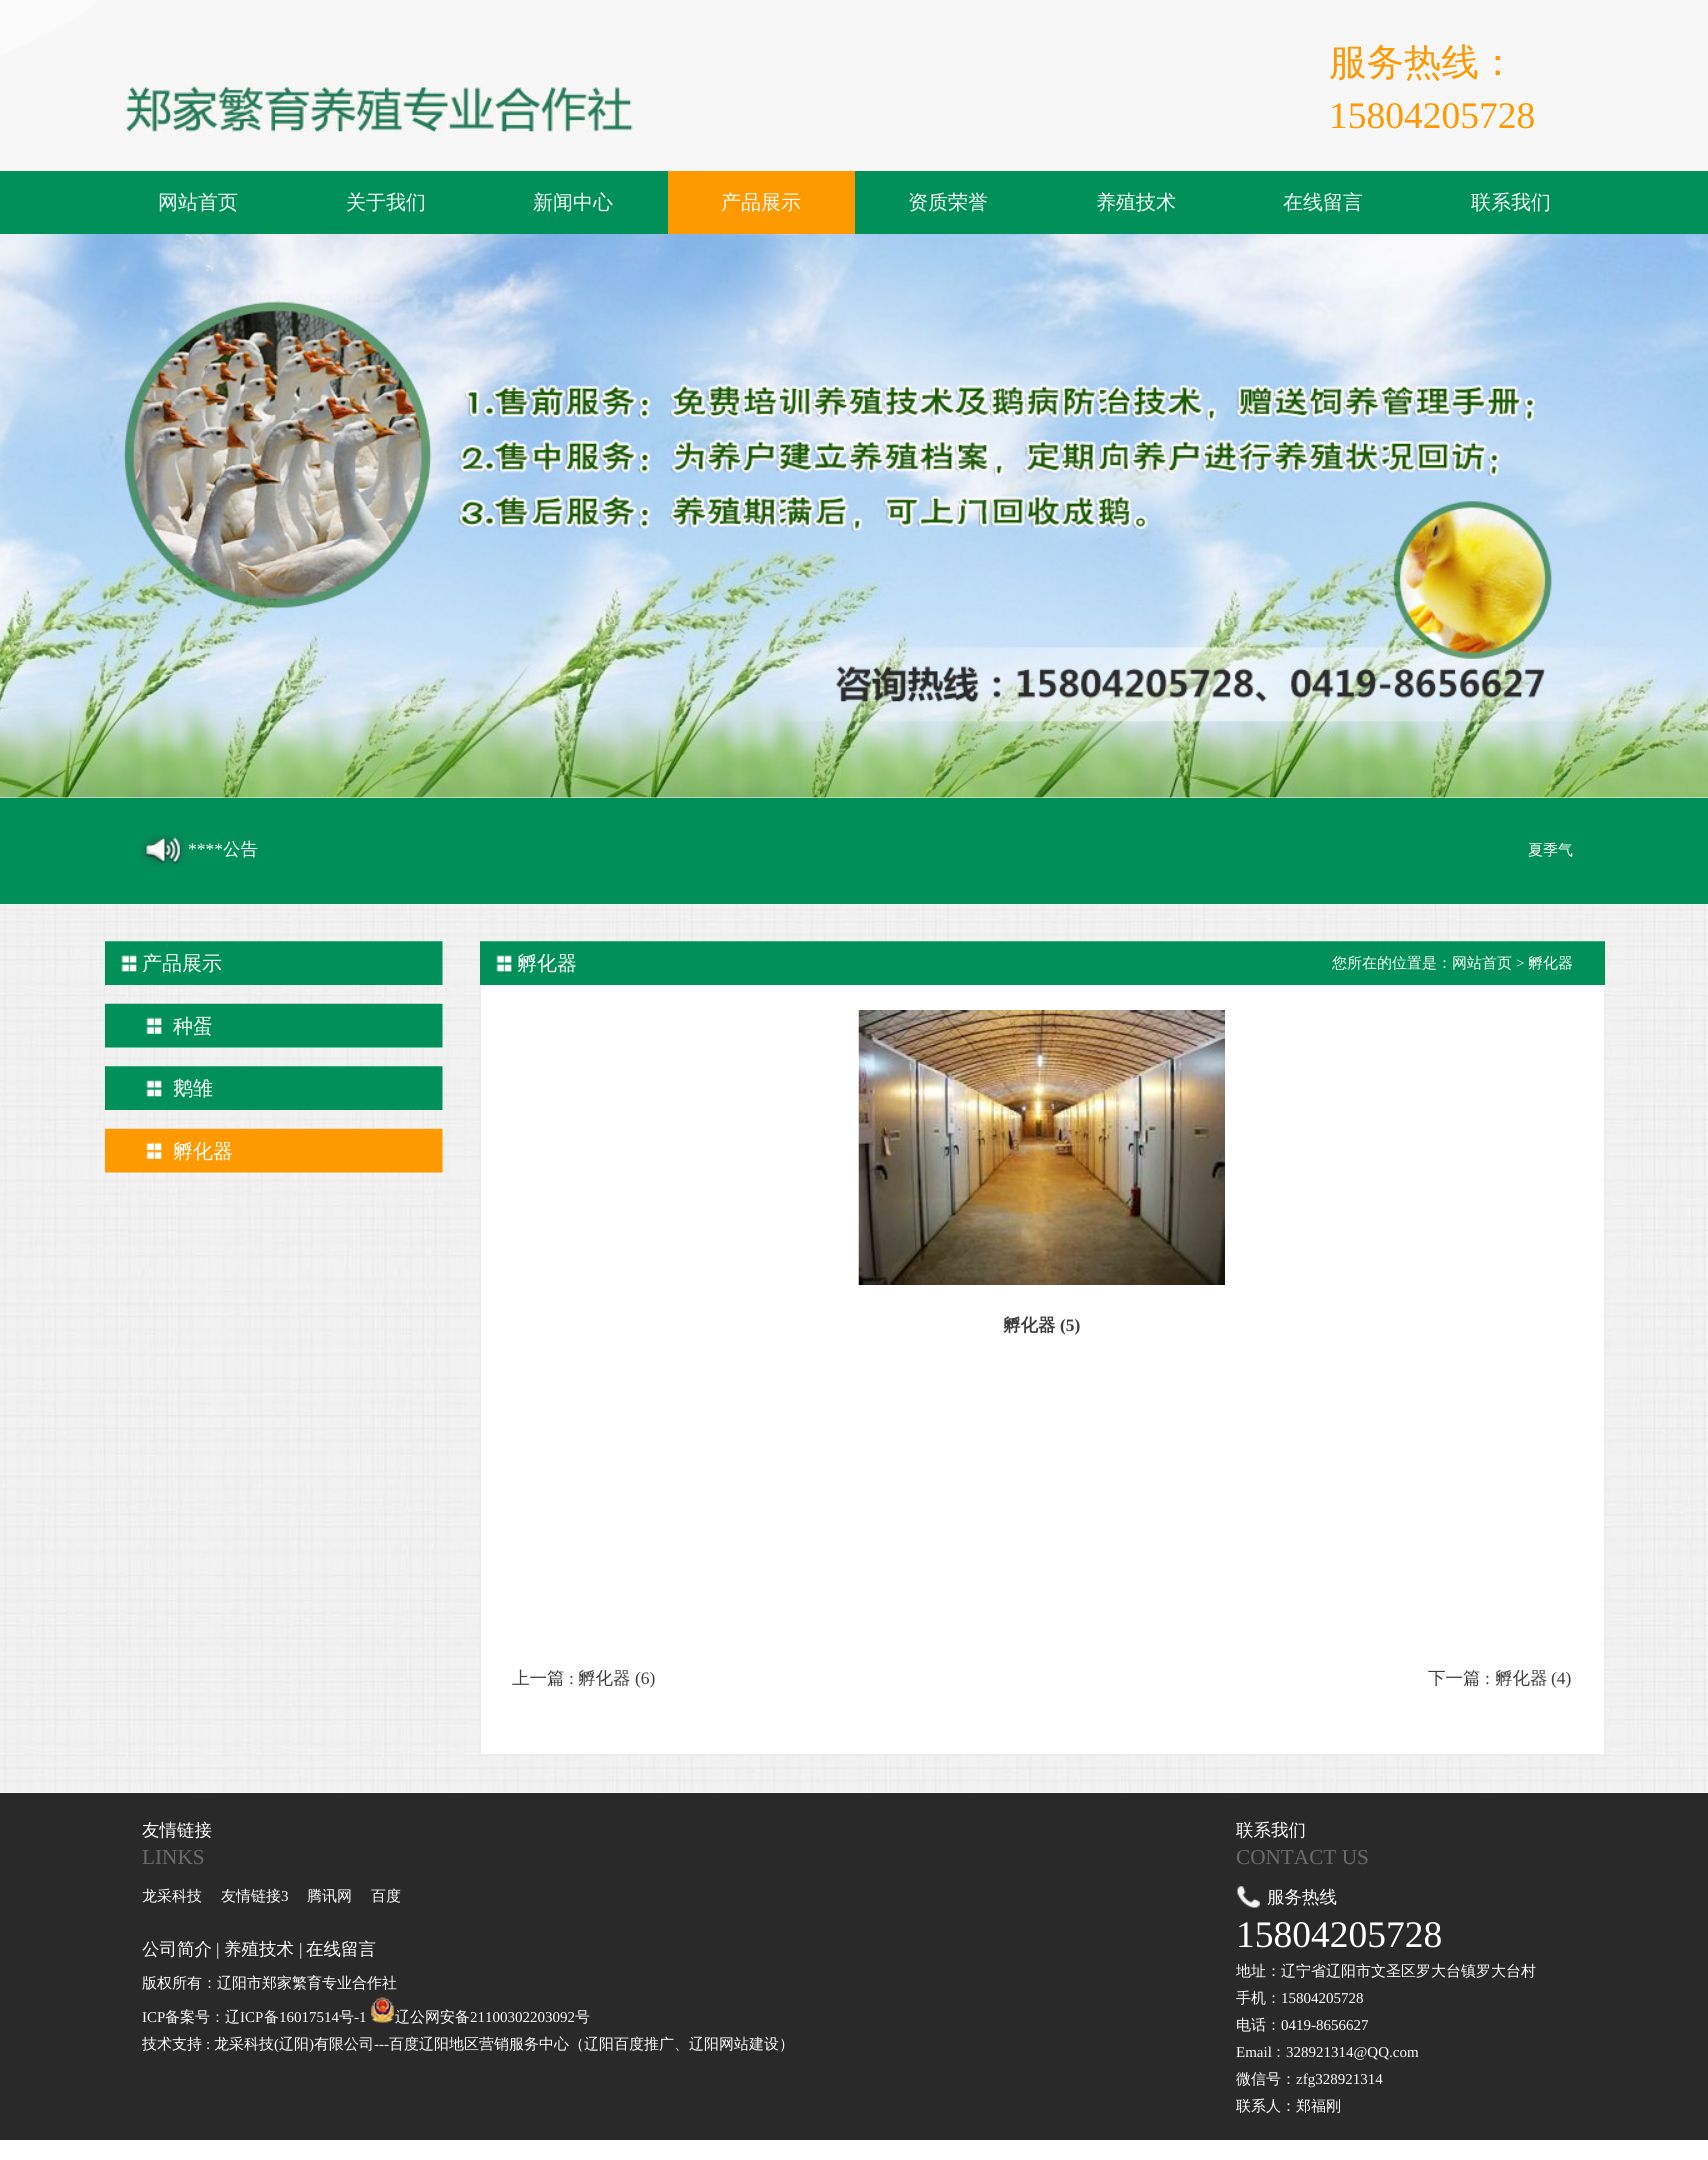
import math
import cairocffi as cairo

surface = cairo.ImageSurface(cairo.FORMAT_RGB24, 1708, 2160)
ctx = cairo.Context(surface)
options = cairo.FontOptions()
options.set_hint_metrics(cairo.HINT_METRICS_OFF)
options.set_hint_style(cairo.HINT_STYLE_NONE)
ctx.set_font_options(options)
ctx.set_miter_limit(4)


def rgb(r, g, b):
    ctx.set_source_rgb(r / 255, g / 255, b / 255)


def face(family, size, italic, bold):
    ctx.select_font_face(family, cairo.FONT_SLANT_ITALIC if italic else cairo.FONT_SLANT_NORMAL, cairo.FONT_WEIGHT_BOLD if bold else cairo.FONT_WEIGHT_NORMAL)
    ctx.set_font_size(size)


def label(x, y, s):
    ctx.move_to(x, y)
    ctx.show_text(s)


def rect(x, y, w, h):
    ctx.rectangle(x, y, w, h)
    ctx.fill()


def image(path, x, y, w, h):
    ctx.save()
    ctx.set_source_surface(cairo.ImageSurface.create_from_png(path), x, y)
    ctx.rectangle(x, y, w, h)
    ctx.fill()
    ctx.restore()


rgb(255, 255, 255)
ctx.paint()
image('image0.png', 0, 0, 1708, 171)
image('image1.png', 125, 86, 510, 51)
face('WenQuanYi Zen Hei Medium', 37.5, 0, 0)
rgb(253, 153, 1)
label(1329, 75, '服务热线：')
face('Liberation Serif', 37.5, 0, 0)
label(1329, 128, '15804205728')
rgb(1, 144, 90)
rect(0, 171, 1708, 63)
face('WenQuanYi Zen Hei Medium', 20, 0, 0)
rgb(249, 253, 253)
label(158, 209, '网站首页')
label(346, 209, '关于我们')
label(533, 209, '新闻中心')
rgb(253, 154, 1)
rect(668, 171, 187, 63)
rgb(249, 253, 253)
label(721, 209, '产品展示')
label(908, 209, '资质荣誉')
label(1096, 209, '养殖技术')
label(1283, 209, '在线留言')
label(1471, 209, '联系我们')
image('image3.png', 0, 797, 1708, 996)
image('image2.png', 0, 234, 1708, 564)
rgb(1, 143, 89)
rect(0, 798, 1708, 106)
image('image4.png', 139, 833, 49, 34)
face('Liberation Serif', 17.5, 0, 0)
rgb(255, 255, 255)
label(188, 855, '****')
face('WenQuanYi Zen Hei Medium', 17.5, 0, 0)
label(223, 855, '公告')
face('WenQuanYi Zen Hei Medium', 15, 0, 0)
label(1528, 855, '夏季气')
image('image5.png', 105, 941, 338, 44)
face('WenQuanYi Zen Hei Medium', 20, 0, 0)
label(142, 970, '产品展示')
image('image6.png', 105, 1003, 338, 45)
label(173, 1033, '种蛋')
image('image7.png', 105, 1066, 338, 44)
label(173, 1095, '鹅雏')
image('image8.png', 105, 1128, 338, 45)
label(173, 1158, '孵化器')
image('image9.png', 480, 941, 1125, 44)
label(517, 970, '孵化器')
face('WenQuanYi Zen Hei Medium', 15, 0, 0)
label(1332, 968, '您所在的位置是：网站首页')
face('Liberation Serif', 15, 0, 0)
label(1516, 968, '>')
face('WenQuanYi Zen Hei Medium', 15, 0, 0)
label(1528, 968, '孵化器')
rect(481, 985, 1123, 769)
rgb(237, 237, 237)
rect(1604, 985, 1, 770)
rect(509, 1754, 1096, 1)
rect(480, 985, 1, 770)
image('image10.png', 858, 1010, 367, 275)
face('WenQuanYi Zen Hei', 17.5, 0, 1)
rgb(61, 61, 61)
label(1003, 1331, '孵化器')
face('Liberation Serif', 17.5, 0, 1)
label(1060, 1331, '(5)')
face('WenQuanYi Zen Hei Medium', 17.5, 0, 0)
label(512, 1684, '上一篇')
face('Liberation Serif', 17.5, 0, 0)
label(569, 1684, ':')
face('WenQuanYi Zen Hei Medium', 17.5, 0, 0)
label(578, 1684, '孵化器')
face('Liberation Serif', 17.5, 0, 0)
label(635, 1684, '(6)')
face('WenQuanYi Zen Hei Medium', 17.5, 0, 0)
label(1428, 1684, '下一篇')
face('Liberation Serif', 17.5, 0, 0)
label(1485, 1684, ':')
face('WenQuanYi Zen Hei Medium', 17.5, 0, 0)
label(1495, 1684, '孵化器')
face('Liberation Serif', 17.5, 0, 0)
label(1551, 1684, '(4)')
rgb(41, 41, 41)
rect(0, 1793, 1708, 347)
face('WenQuanYi Zen Hei Medium', 17.5, 0, 0)
rgb(255, 255, 255)
label(142, 1836, '友情链接')
face('Liberation Serif', 21.25, 0, 0)
rgb(107, 107, 107)
label(142, 1864, 'LINKS')
face('WenQuanYi Zen Hei Medium', 15, 0, 0)
rgb(255, 255, 255)
label(142, 1901, '龙采科技')
label(221, 1901, '友情链接')
face('Liberation Serif', 15, 0, 0)
label(281, 1901, '3')
face('WenQuanYi Zen Hei Medium', 15, 0, 0)
label(307, 1901, '腾讯网')
label(371, 1901, '百度')
face('WenQuanYi Zen Hei Medium', 17.5, 0, 0)
label(142, 1955, '公司简介')
face('Liberation Serif', 17.5, 0, 0)
label(216, 1955, '|')
face('WenQuanYi Zen Hei Medium', 17.5, 0, 0)
label(224, 1955, '养殖技术')
face('Liberation Serif', 17.5, 0, 0)
label(299, 1955, '|')
face('WenQuanYi Zen Hei Medium', 17.5, 0, 0)
label(306, 1955, '在线留言')
face('WenQuanYi Zen Hei Medium', 15, 0, 0)
label(142, 1988, '版权所有：辽阳市郑家繁育专业合作社')
face('Liberation Serif', 15, 0, 0)
label(142, 2022, 'ICP')
face('WenQuanYi Zen Hei Medium', 15, 0, 0)
label(165, 2022, '备案号：辽')
face('Liberation Serif', 15, 0, 0)
label(240, 2022, 'ICP')
face('WenQuanYi Zen Hei Medium', 15, 0, 0)
label(264, 2022, '备')
face('Liberation Serif', 15, 0, 0)
label(279, 2022, '16017514')
face('WenQuanYi Zen Hei Medium', 15, 0, 0)
label(339, 2022, '号')
face('Liberation Serif', 15, 0, 0)
label(354, 2022, '-1')
image('image11.png', 371, 1997, 23, 26)
face('WenQuanYi Zen Hei Medium', 15, 0, 0)
label(395, 2022, '辽公网安备')
face('Liberation Serif', 15, 0, 0)
label(470, 2022, '21100302203092')
face('WenQuanYi Zen Hei Medium', 15, 0, 0)
label(575, 2022, '号')
label(142, 2049, '技术支持')
face('Liberation Serif', 15, 0, 0)
label(206, 2049, ':')
face('WenQuanYi Zen Hei Medium', 15, 0, 0)
label(214, 2049, '龙采科技')
face('Liberation Serif', 15, 0, 0)
label(274, 2049, '(')
face('WenQuanYi Zen Hei Medium', 15, 0, 0)
label(279, 2049, '辽阳')
face('Liberation Serif', 15, 0, 0)
label(309, 2049, ')')
face('WenQuanYi Zen Hei Medium', 15, 0, 0)
label(314, 2049, '有限公司')
face('Liberation Serif', 15, 0, 0)
label(374, 2049, '---')
face('WenQuanYi Zen Hei Medium', 15, 0, 0)
label(389, 2049, '百度辽阳地区营销服务中心（辽阳百度推广、辽阳网站建设）')
face('WenQuanYi Zen Hei Medium', 17.5, 0, 0)
label(1236, 1836, '联系我们')
face('Liberation Serif', 21.25, 0, 0)
rgb(107, 107, 107)
label(1236, 1864, 'CONTACT US')
image('image12.png', 1236, 1886, 24, 22)
face('WenQuanYi Zen Hei Medium', 17.5, 0, 0)
rgb(255, 255, 255)
label(1267, 1903, '服务热线')
face('Liberation Serif', 37.5, 0, 0)
label(1236, 1947, '15804205728')
face('WenQuanYi Zen Hei Medium', 15, 0, 0)
label(1236, 1976, '地址：辽宁省辽阳市文圣区罗大台镇罗大台村')
label(1236, 2003, '手机：')
face('Liberation Serif', 15, 0, 0)
label(1281, 2003, '15804205728')
face('WenQuanYi Zen Hei Medium', 15, 0, 0)
label(1236, 2030, '电话：')
face('Liberation Serif', 15, 0, 0)
label(1281, 2030, '0419-8656627')
label(1236, 2057, 'Email')
face('WenQuanYi Zen Hei Medium', 15, 0, 0)
label(1271, 2057, '：')
face('Liberation Serif', 15, 0, 0)
label(1286, 2057, '328921314@QQ.com')
face('WenQuanYi Zen Hei Medium', 15, 0, 0)
label(1236, 2084, '微信号：')
face('Liberation Serif', 15, 0, 0)
label(1296, 2084, 'zfg328921314')
face('WenQuanYi Zen Hei Medium', 15, 0, 0)
label(1236, 2111, '联系人：郑福刚')
surface.write_to_png('render.png')
